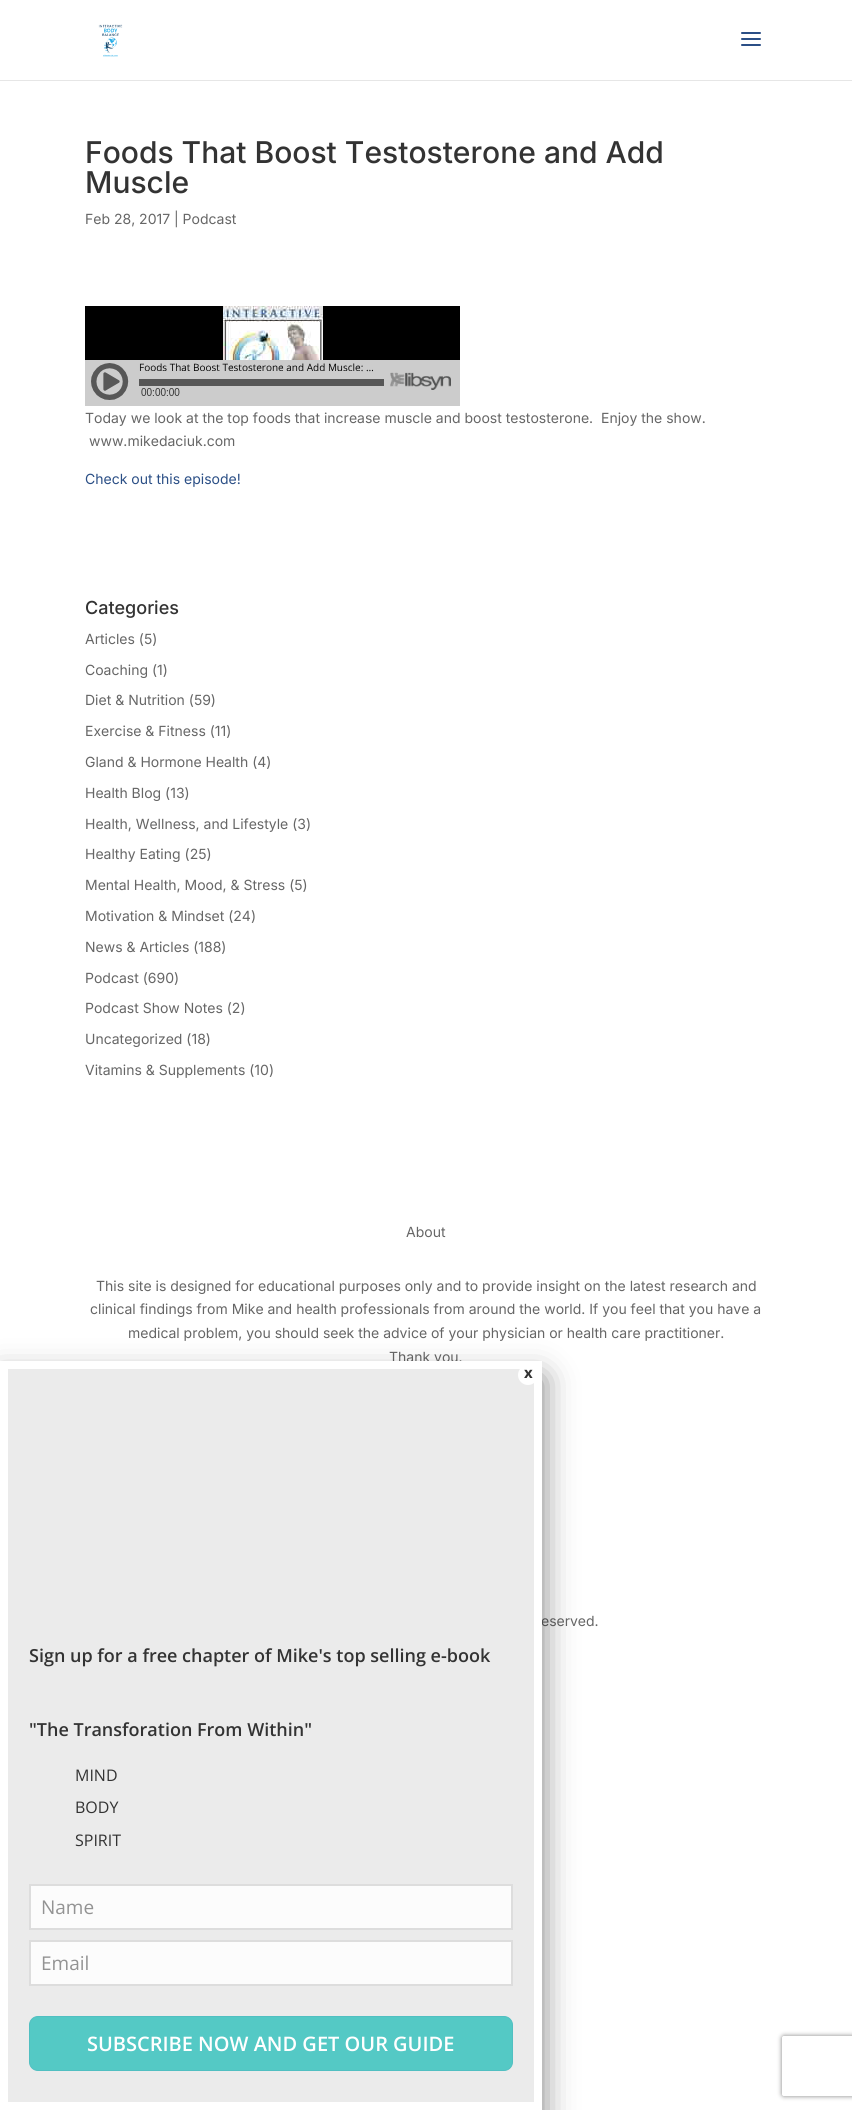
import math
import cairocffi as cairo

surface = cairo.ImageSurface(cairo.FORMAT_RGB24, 852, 2110)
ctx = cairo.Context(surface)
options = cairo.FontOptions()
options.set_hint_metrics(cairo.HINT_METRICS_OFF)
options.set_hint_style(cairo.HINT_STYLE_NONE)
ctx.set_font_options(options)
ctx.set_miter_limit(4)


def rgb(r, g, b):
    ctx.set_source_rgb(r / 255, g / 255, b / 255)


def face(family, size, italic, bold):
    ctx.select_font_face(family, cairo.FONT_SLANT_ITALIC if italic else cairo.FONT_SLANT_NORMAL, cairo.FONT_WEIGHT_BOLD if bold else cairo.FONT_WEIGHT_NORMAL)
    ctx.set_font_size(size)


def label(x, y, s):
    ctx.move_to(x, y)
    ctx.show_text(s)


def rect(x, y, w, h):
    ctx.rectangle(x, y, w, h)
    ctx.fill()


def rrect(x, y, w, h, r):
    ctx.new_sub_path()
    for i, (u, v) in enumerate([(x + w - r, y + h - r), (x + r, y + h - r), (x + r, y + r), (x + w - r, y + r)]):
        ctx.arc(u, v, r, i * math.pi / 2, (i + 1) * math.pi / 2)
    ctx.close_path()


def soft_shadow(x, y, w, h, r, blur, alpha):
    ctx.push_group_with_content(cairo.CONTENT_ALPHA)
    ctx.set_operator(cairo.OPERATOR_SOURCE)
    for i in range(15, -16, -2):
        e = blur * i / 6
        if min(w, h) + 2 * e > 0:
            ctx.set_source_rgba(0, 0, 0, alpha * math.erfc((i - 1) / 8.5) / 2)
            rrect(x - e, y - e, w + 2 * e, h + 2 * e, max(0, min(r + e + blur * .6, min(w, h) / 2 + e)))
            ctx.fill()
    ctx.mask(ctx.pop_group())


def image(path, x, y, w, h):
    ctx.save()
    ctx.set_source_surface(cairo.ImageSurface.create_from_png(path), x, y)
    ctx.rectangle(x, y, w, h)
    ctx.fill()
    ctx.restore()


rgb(255, 255, 255)
ctx.paint()
rgb(230, 230, 230)
rect(0, 80, 852, 1)
image('image0.png', 98, 24, 25, 33)
image('image1.png', 741, 32, 20, 14)
face('Inter Medium', 30, 0, 0)
rgb(51, 51, 51)
label(85, 163, 'Foods That Boost Testosterone and Add')
label(85, 193, 'Muscle')
face('Inter', 14, 0, 0)
rgb(102, 102, 102)
label(85, 224, 'Feb 28, 2017 | Podcast')
image('image2.png', 85, 306, 375, 100)
label(85, 423, 'Today we look at the top foods that increase muscle and boost testosterone.  Enjoy the show.')
label(89, 446, 'www.mikedaciuk.com')
rgb(43, 79, 134)
label(85, 484, 'Check out this episode!')
face('Inter Medium', 18, 0, 0)
rgb(51, 51, 51)
label(85, 614, 'Categories')
face('Inter', 14, 0, 0)
rgb(102, 102, 102)
label(85, 644, 'Articles (5)')
label(85, 675, 'Coaching (1)')
label(85, 705, 'Diet & Nutrition (59)')
label(85, 736, 'Exercise & Fitness (11)')
label(85, 767, 'Gland & Hormone Health (4)')
label(85, 798, 'Health Blog (13)')
label(85, 829, 'Health, Wellness, and Lifestyle (3)')
label(85, 859, 'Healthy Eating (25)')
label(85, 890, 'Mental Health, Mood, & Stress (5)')
label(85, 921, 'Motivation & Mindset (24)')
label(85, 952, 'News & Articles (188)')
label(85, 983, 'Podcast (690)')
label(85, 1013, 'Podcast Show Notes (2)')
label(85, 1044, 'Uncategorized (18)')
label(85, 1075, 'Vitamins & Supplements (10)')
label(406, 1237, 'About')
label(96, 1291, 'This site is designed for educational purposes only and to provide insight on the latest research and')
label(90, 1314, 'clinical findings from Mike and health professionals from around the world. If you feel that you have a')
label(128, 1338, 'medical problem, you should seek the advice of your physician or health care practitioner.')
label(389, 1362, 'Thank you.')
label(541, 1626, 'eserved.')
rgb(0, 0, 0)
soft_shadow(0, 1378, 542, 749, 0, 16, 0.52)
rgb(235, 235, 235)
ctx.rectangle(4, 1365, 534, 741)
ctx.fill_preserve()
rgb(255, 255, 255)
ctx.set_line_width(8)
ctx.stroke()
ctx.arc(528, 1375, 10, 0, 2 * math.pi)
ctx.fill()
face('Open Sans', 15, 0, 1)
rgb(51, 51, 51)
label(524, 1378, 'x')
face('Open Sans SemiBold', 18, 0, 0)
label(29, 1662, 'Sign up for a free chapter of Mike\'s top selling e-book')
label(29, 1736, '"The Transforation From Within"')
face('Open Sans', 16, 0, 0)
label(75, 1781, 'MIND')
label(75, 1813, 'BODY')
label(75, 1846, 'SPIRIT')
rgb(252, 252, 252)
ctx.rectangle(30, 1885, 482, 44)
ctx.fill_preserve()
rgb(221, 221, 221)
ctx.set_line_width(2)
ctx.stroke()
face('Open Sans', 19, 0, 0)
rgb(147, 147, 147)
label(41, 1914, 'Name')
rgb(252, 252, 252)
ctx.rectangle(30, 1941, 482, 44)
ctx.fill_preserve()
rgb(221, 221, 221)
ctx.stroke()
rgb(147, 147, 147)
label(41, 1970, 'Email')
rgb(84, 201, 197)
rrect(29.5, 2016.5, 483, 54, 8.5)
ctx.fill_preserve()
rgb(81, 191, 193)
ctx.set_line_width(1)
ctx.stroke()
face('Open Sans SemiBold', 20, 0, 0)
rgb(255, 255, 255)
label(87, 2051, 'SUBSCRIBE NOW AND GET OUR GUIDE')
ctx.save()
ctx.set_fill_rule(cairo.FILL_RULE_EVEN_ODD)
ctx.new_path()
ctx.move_to(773, 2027)
ctx.line_to(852, 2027)
ctx.line_to(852, 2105)
ctx.line_to(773, 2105)
ctx.close_path()
ctx.move_to(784, 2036)
ctx.line_to(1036, 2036)
ctx.curve_to(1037, 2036, 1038, 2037, 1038, 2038)
ctx.line_to(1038, 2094)
ctx.curve_to(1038, 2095, 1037, 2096, 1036, 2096)
ctx.line_to(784, 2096)
ctx.curve_to(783, 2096, 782, 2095, 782, 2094)
ctx.line_to(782, 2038)
ctx.curve_to(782, 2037, 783, 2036, 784, 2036)
ctx.close_path()
ctx.clip()
rgb(128, 128, 128)
soft_shadow(782, 2036, 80, 60, 2, 2.5, 1)
ctx.restore()
surface.write_to_png('render.png')
